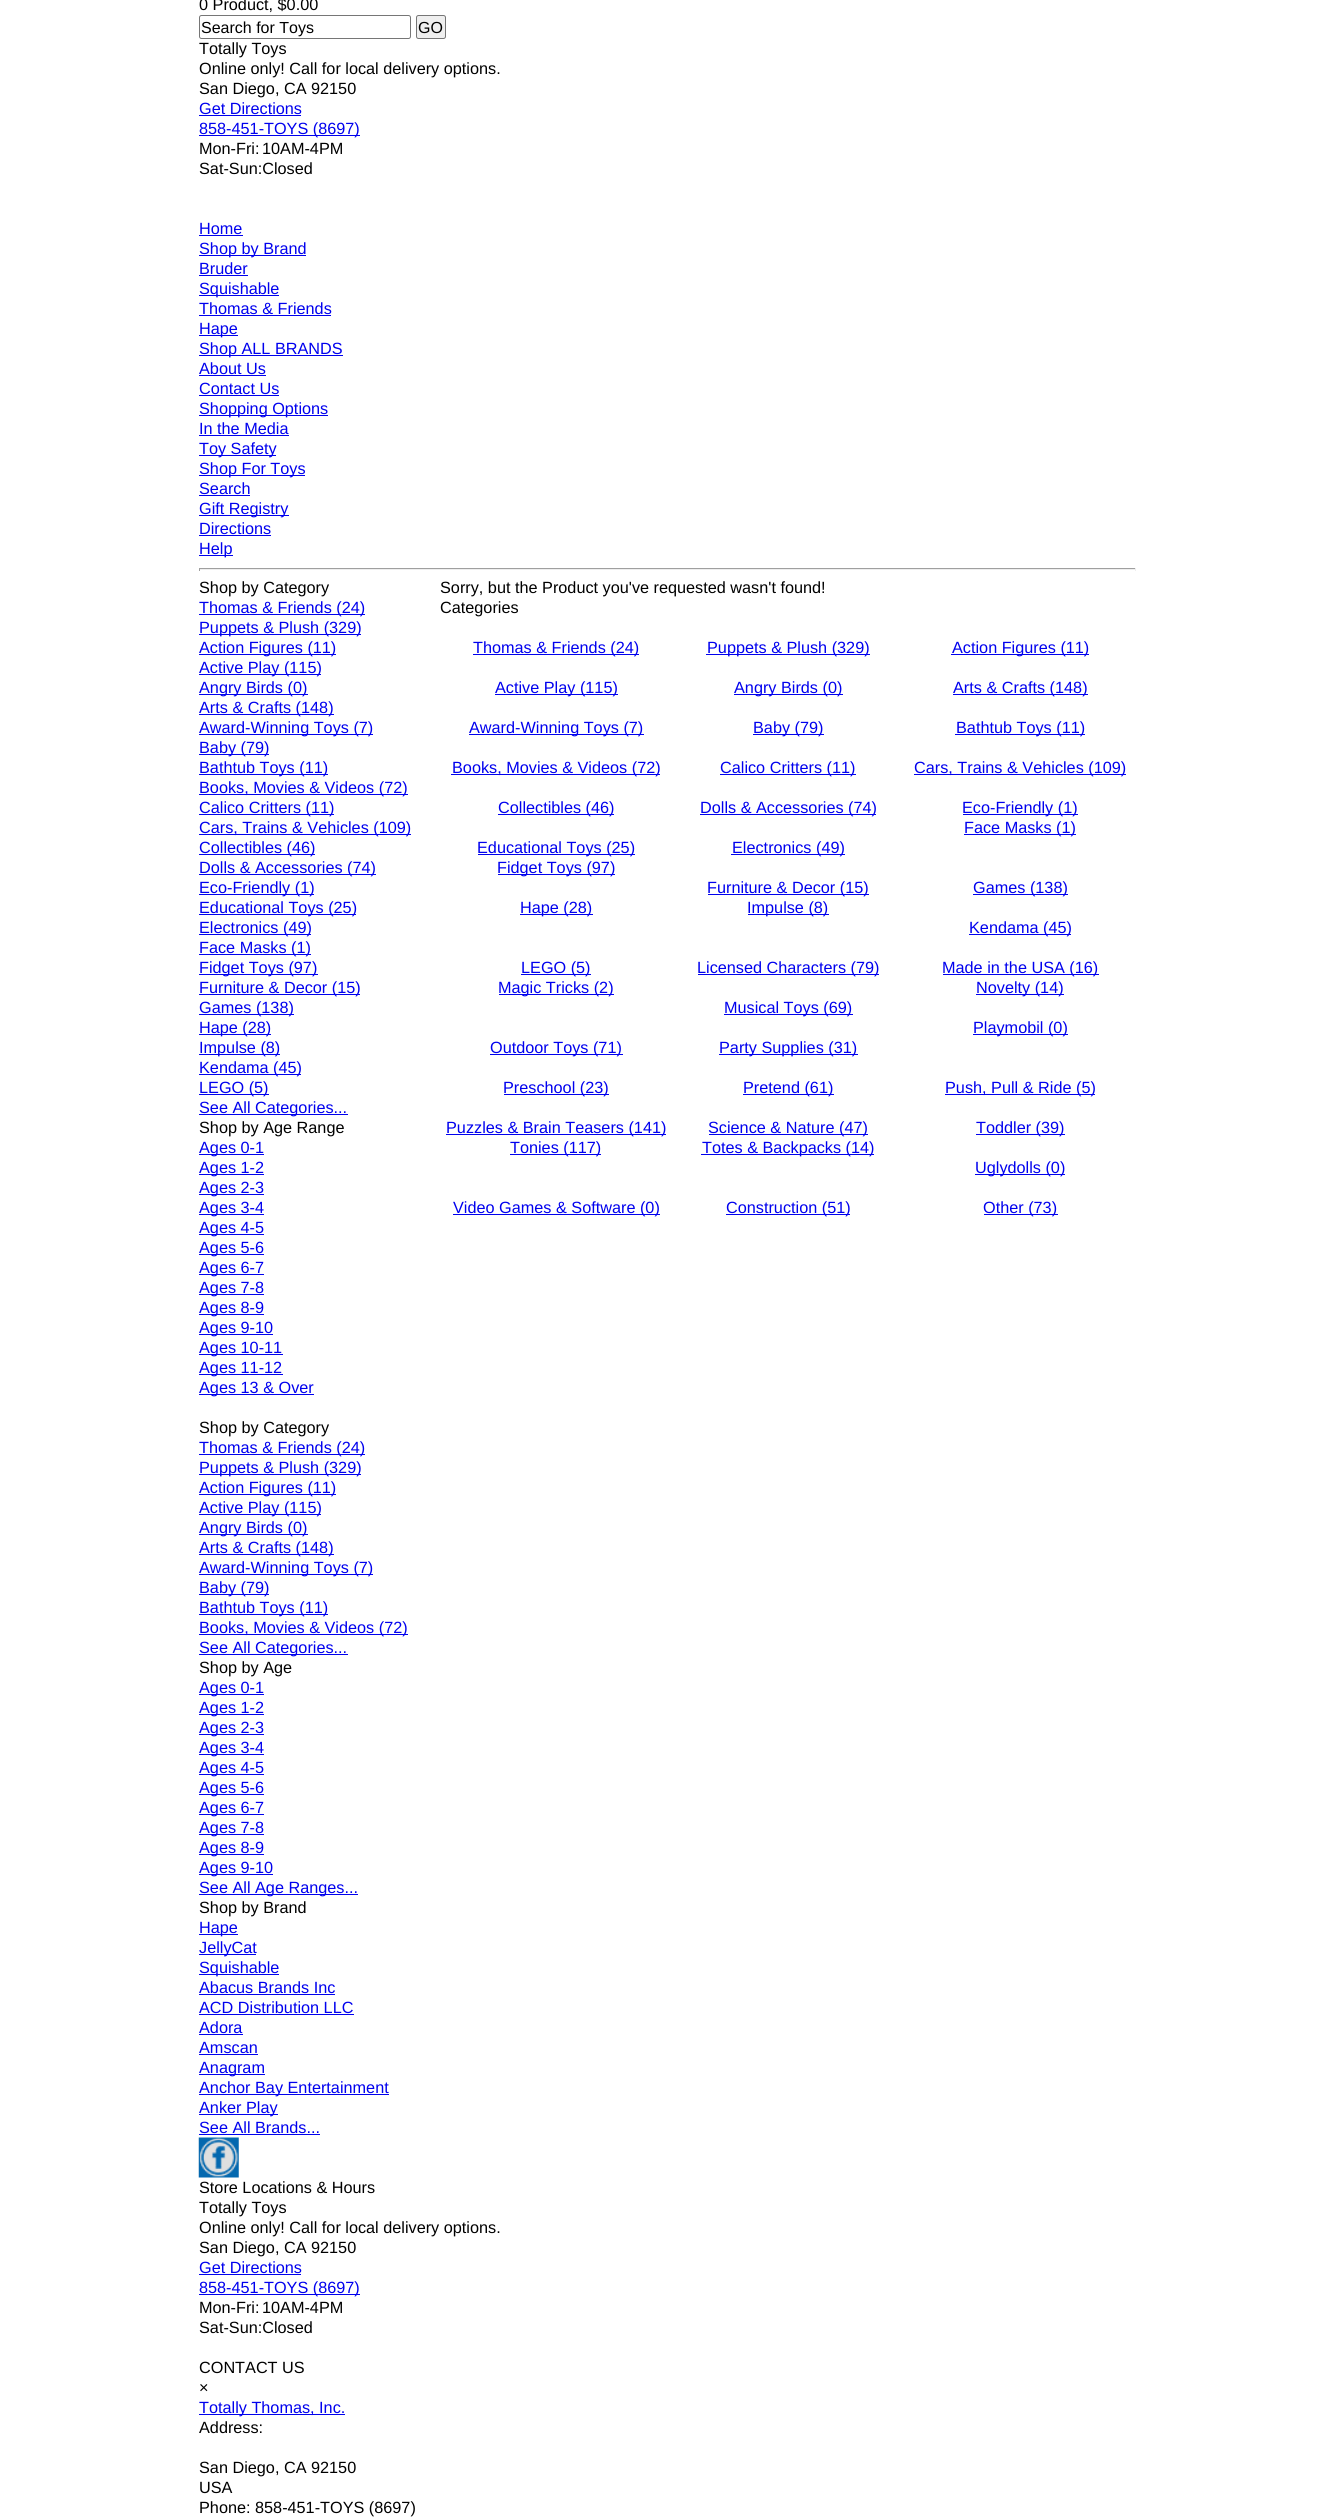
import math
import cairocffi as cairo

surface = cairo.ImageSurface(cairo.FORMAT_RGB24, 1334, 2517)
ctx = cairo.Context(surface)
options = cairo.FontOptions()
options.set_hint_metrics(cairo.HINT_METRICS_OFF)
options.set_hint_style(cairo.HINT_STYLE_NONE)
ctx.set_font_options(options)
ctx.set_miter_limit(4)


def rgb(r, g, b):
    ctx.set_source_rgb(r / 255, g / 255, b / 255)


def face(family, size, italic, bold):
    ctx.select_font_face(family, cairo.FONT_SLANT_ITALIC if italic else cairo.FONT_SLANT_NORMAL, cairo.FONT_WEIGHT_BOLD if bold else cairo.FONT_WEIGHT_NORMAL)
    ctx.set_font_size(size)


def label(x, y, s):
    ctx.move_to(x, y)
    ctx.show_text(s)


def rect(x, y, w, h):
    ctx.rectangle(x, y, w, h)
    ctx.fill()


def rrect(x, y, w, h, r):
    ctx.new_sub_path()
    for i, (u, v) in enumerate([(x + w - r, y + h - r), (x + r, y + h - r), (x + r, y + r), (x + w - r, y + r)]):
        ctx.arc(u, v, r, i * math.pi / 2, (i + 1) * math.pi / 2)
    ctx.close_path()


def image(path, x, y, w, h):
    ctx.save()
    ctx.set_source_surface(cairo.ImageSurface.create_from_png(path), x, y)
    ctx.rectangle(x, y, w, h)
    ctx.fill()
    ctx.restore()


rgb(255, 255, 255)
ctx.paint()
face('Liberation Sans', 16.25, 0, 0)
rgb(0, 0, 0)
label(199, 10, '0 Product, $0.00')
rrect(199.5, 15.5, 211, 23, 2)
rgb(118, 118, 118)
ctx.set_line_width(1)
ctx.stroke()
face('Liberation Sans', 16, 0, 0)
rgb(0, 0, 0)
label(201, 33, 'Search for Toys')
rgb(239, 239, 239)
rrect(416.5, 15.5, 29, 23, 2)
ctx.fill_preserve()
rgb(118, 118, 118)
ctx.stroke()
rgb(0, 0, 0)
label(418, 33, 'GO')
face('Liberation Sans', 16.25, 0, 0)
label(199, 54, 'Totally Toys')
label(199, 74, 'Online only! Call for local delivery options.')
label(199, 94, 'San Diego, CA 92150')
rgb(0, 0, 238)
label(199, 114, 'Get Directions')
rect(199, 115, 102, 1)
rect(199, 135, 161, 1)
label(199, 134, '858-451-TOYS (8697)')
rgb(0, 0, 0)
label(199, 154, 'Mon-Fri:')
label(262, 154, '10AM-4PM')
label(199, 174, 'Sat-Sun:Closed')
rgb(0, 0, 238)
label(199, 234, 'Home')
rect(199, 235, 44, 1)
rect(199, 255, 107, 1)
label(199, 254, 'Shop by Brand')
label(199, 274, 'Bruder')
rect(199, 275, 49, 1)
rect(199, 295, 80, 1)
label(199, 294, 'Squishable')
label(199, 314, 'Thomas & Friends')
rect(199, 315, 132, 1)
rect(199, 335, 39, 1)
label(199, 334, 'Hape')
rect(199, 355, 144, 1)
label(199, 354, 'Shop ALL BRANDS')
label(199, 374, 'About Us')
rect(199, 375, 67, 1)
label(199, 394, 'Contact Us')
rect(199, 395, 80, 1)
rect(199, 415, 129, 1)
label(199, 414, 'Shopping Options')
label(199, 434, 'In the Media')
rect(199, 435, 90, 1)
rect(199, 455, 77, 1)
label(199, 454, 'Toy Safety')
rect(199, 475, 106, 1)
label(199, 474, 'Shop For Toys')
label(199, 494, 'Search')
rect(199, 495, 51, 1)
rect(199, 515, 90, 1)
label(199, 514, 'Gift Registry')
label(199, 534, 'Directions')
rect(199, 535, 72, 1)
rect(199, 555, 34, 1)
label(199, 554, 'Help')
rgb(159, 159, 159)
rect(199, 568, 937, 1)
rgb(238, 238, 238)
rect(1135, 568, 1, 3)
rect(199, 569, 937, 1)
rgb(159, 159, 159)
rect(199, 568, 1, 3)
rgb(0, 0, 0)
label(199, 593, 'Shop by Category')
rgb(0, 0, 238)
rect(199, 614, 166, 1)
label(199, 613, 'Thomas & Friends (24)')
rect(199, 634, 162, 1)
label(199, 633, 'Puppets & Plush (329)')
rect(199, 654, 137, 1)
label(199, 653, 'Action Figures (11)')
rect(199, 674, 122, 1)
label(199, 673, 'Active Play (115)')
rect(199, 694, 109, 1)
label(199, 693, 'Angry Birds (0)')
rect(199, 714, 135, 1)
label(199, 713, 'Arts & Crafts (148)')
rect(199, 734, 174, 1)
label(199, 733, 'Award-Winning Toys (7)')
rect(199, 754, 70, 1)
label(199, 753, 'Baby (79)')
rect(199, 774, 129, 1)
label(199, 773, 'Bathtub Toys (11)')
rect(199, 794, 209, 1)
label(199, 793, 'Books, Movies & Videos (72)')
rect(199, 814, 135, 1)
label(199, 813, 'Calico Critters (11)')
rect(199, 834, 212, 1)
label(199, 833, 'Cars, Trains & Vehicles (109)')
rect(199, 854, 116, 1)
label(199, 853, 'Collectibles (46)')
rect(199, 874, 177, 1)
label(199, 873, 'Dolls & Accessories (74)')
rect(199, 894, 115, 1)
label(199, 893, 'Eco-Friendly (1)')
rect(199, 914, 157, 1)
label(199, 913, 'Educational Toys (25)')
rect(199, 934, 112, 1)
label(199, 933, 'Electronics (49)')
rect(199, 954, 112, 1)
label(199, 953, 'Face Masks (1)')
rect(199, 974, 119, 1)
label(199, 973, 'Fidget Toys (97)')
rect(199, 994, 161, 1)
label(199, 993, 'Furniture & Decor (15)')
rect(199, 1014, 95, 1)
label(199, 1013, 'Games (138)')
rect(199, 1034, 72, 1)
label(199, 1033, 'Hape (28)')
rect(199, 1054, 81, 1)
label(199, 1053, 'Impulse (8)')
rect(199, 1074, 102, 1)
label(199, 1073, 'Kendama (45)')
rect(199, 1094, 70, 1)
label(199, 1093, 'LEGO (5)')
rect(199, 1114, 149, 1)
label(199, 1113, 'See All Categories...')
rgb(0, 0, 0)
label(199, 1133, 'Shop by Age Range')
rgb(0, 0, 238)
rect(199, 1154, 65, 1)
label(199, 1153, 'Ages 0-1')
rect(199, 1174, 65, 1)
label(199, 1173, 'Ages 1-2')
rect(199, 1194, 65, 1)
label(199, 1193, 'Ages 2-3')
rect(199, 1214, 65, 1)
label(199, 1213, 'Ages 3-4')
rect(199, 1234, 65, 1)
label(199, 1233, 'Ages 4-5')
rect(199, 1254, 65, 1)
label(199, 1253, 'Ages 5-6')
rect(199, 1274, 65, 1)
label(199, 1273, 'Ages 6-7')
rect(199, 1294, 65, 1)
label(199, 1293, 'Ages 7-8')
rect(199, 1314, 65, 1)
label(199, 1313, 'Ages 8-9')
rect(199, 1334, 74, 1)
label(199, 1333, 'Ages 9-10')
rect(199, 1354, 84, 1)
label(199, 1353, 'Ages 10-11')
rect(199, 1374, 84, 1)
label(199, 1373, 'Ages 11-12')
rect(199, 1394, 115, 1)
label(199, 1393, 'Ages 13 & Over')
rgb(0, 0, 0)
label(440, 593, 'Sorry, but the Product you\'ve requested wasn\'t found!')
label(440, 613, 'Categories')
rgb(0, 0, 238)
rect(473, 654, 166, 1)
label(473, 653, 'Thomas & Friends (24)')
rect(706, 654, 164, 1)
label(707, 653, 'Puppets & Plush (329)')
rect(951, 654, 138, 1)
label(952, 653, 'Action Figures (11)')
rect(495, 694, 123, 1)
label(495, 693, 'Active Play (115)')
rect(734, 694, 109, 1)
label(734, 693, 'Angry Birds (0)')
rect(953, 694, 135, 1)
label(953, 693, 'Arts & Crafts (148)')
rect(469, 734, 175, 1)
label(469, 733, 'Award-Winning Toys (7)')
rect(753, 734, 71, 1)
label(753, 733, 'Baby (79)')
rect(955, 734, 130, 1)
label(956, 733, 'Bathtub Toys (11)')
rect(451, 774, 209, 1)
label(452, 773, 'Books, Movies & Videos (72)')
rect(720, 774, 136, 1)
label(720, 773, 'Calico Critters (11)')
rect(914, 774, 212, 1)
label(914, 773, 'Cars, Trains & Vehicles (109)')
rect(498, 814, 116, 1)
label(498, 813, 'Collectibles (46)')
rect(700, 814, 176, 1)
label(700, 813, 'Dolls & Accessories (74)')
rect(963, 814, 115, 1)
label(962, 813, 'Eco-Friendly (1)')
rect(964, 834, 112, 1)
label(964, 833, 'Face Masks (1)')
rect(478, 854, 157, 1)
label(477, 853, 'Educational Toys (25)')
rect(731, 854, 114, 1)
label(732, 853, 'Electronics (49)')
rect(498, 874, 117, 1)
label(497, 873, 'Fidget Toys (97)')
rect(708, 894, 161, 1)
label(707, 893, 'Furniture & Decor (15)')
rect(973, 894, 95, 1)
label(973, 893, 'Games (138)')
rect(520, 914, 73, 1)
label(520, 913, 'Hape (28)')
rect(748, 914, 81, 1)
label(747, 913, 'Impulse (8)')
rect(969, 934, 102, 1)
label(969, 933, 'Kendama (45)')
rect(521, 974, 70, 1)
label(521, 973, 'LEGO (5)')
rect(698, 974, 181, 1)
label(697, 973, 'Licensed Characters (79)')
rect(943, 974, 156, 1)
label(942, 973, 'Made in the USA (16)')
rect(499, 994, 115, 1)
label(498, 993, 'Magic Tricks (2)')
rect(976, 994, 88, 1)
label(976, 993, 'Novelty (14)')
rect(724, 1014, 129, 1)
label(724, 1013, 'Musical Toys (69)')
rect(973, 1034, 95, 1)
label(973, 1033, 'Playmobil (0)')
rect(490, 1054, 133, 1)
label(490, 1053, 'Outdoor Toys (71)')
rect(719, 1054, 139, 1)
label(719, 1053, 'Party Supplies (31)')
rect(504, 1094, 105, 1)
label(503, 1093, 'Preschool (23)')
rect(743, 1094, 91, 1)
label(743, 1093, 'Pretend (61)')
rect(945, 1094, 150, 1)
label(945, 1093, 'Push, Pull & Ride (5)')
rect(446, 1134, 220, 1)
label(446, 1133, 'Puzzles & Brain Teasers (141)')
rect(709, 1134, 159, 1)
label(708, 1133, 'Science & Nature (47)')
rect(976, 1134, 89, 1)
label(976, 1133, 'Toddler (39)')
rect(510, 1154, 91, 1)
label(510, 1153, 'Tonies (117)')
rect(701, 1154, 173, 1)
label(702, 1153, 'Totes & Backpacks (14)')
rect(975, 1174, 90, 1)
label(975, 1173, 'Uglydolls (0)')
rect(453, 1214, 207, 1)
label(453, 1213, 'Video Games & Software (0)')
rect(726, 1214, 124, 1)
label(726, 1213, 'Construction (51)')
rect(984, 1214, 74, 1)
label(983, 1213, 'Other (73)')
rgb(0, 0, 0)
label(199, 1433, 'Shop by Category')
rgb(0, 0, 238)
rect(199, 1454, 166, 1)
label(199, 1453, 'Thomas & Friends (24)')
rect(199, 1474, 162, 1)
label(199, 1473, 'Puppets & Plush (329)')
rect(199, 1494, 137, 1)
label(199, 1493, 'Action Figures (11)')
rect(199, 1514, 122, 1)
label(199, 1513, 'Active Play (115)')
rect(199, 1534, 109, 1)
label(199, 1533, 'Angry Birds (0)')
rect(199, 1554, 135, 1)
label(199, 1553, 'Arts & Crafts (148)')
rect(199, 1574, 174, 1)
label(199, 1573, 'Award-Winning Toys (7)')
rect(199, 1594, 70, 1)
label(199, 1593, 'Baby (79)')
rect(199, 1614, 129, 1)
label(199, 1613, 'Bathtub Toys (11)')
rect(199, 1634, 209, 1)
label(199, 1633, 'Books, Movies & Videos (72)')
rect(199, 1654, 149, 1)
label(199, 1653, 'See All Categories...')
rgb(0, 0, 0)
label(199, 1673, 'Shop by Age')
rgb(0, 0, 238)
rect(199, 1694, 65, 1)
label(199, 1693, 'Ages 0-1')
rect(199, 1714, 65, 1)
label(199, 1713, 'Ages 1-2')
rect(199, 1734, 65, 1)
label(199, 1733, 'Ages 2-3')
rect(199, 1754, 65, 1)
label(199, 1753, 'Ages 3-4')
rect(199, 1774, 65, 1)
label(199, 1773, 'Ages 4-5')
rect(199, 1794, 65, 1)
label(199, 1793, 'Ages 5-6')
rect(199, 1814, 65, 1)
label(199, 1813, 'Ages 6-7')
rect(199, 1834, 65, 1)
label(199, 1833, 'Ages 7-8')
rect(199, 1854, 65, 1)
label(199, 1853, 'Ages 8-9')
rect(199, 1874, 74, 1)
label(199, 1873, 'Ages 9-10')
rect(199, 1894, 159, 1)
label(199, 1893, 'See All Age Ranges...')
rgb(0, 0, 0)
label(199, 1913, 'Shop by Brand')
rgb(0, 0, 238)
rect(199, 1934, 39, 1)
label(199, 1933, 'Hape')
rect(199, 1954, 57, 1)
label(199, 1953, 'JellyCat')
rect(199, 1974, 80, 1)
label(199, 1973, 'Squishable')
label(199, 1993, 'Abacus Brands Inc')
rect(199, 1994, 136, 1)
label(199, 2013, 'ACD Distribution LLC')
rect(199, 2014, 155, 1)
label(199, 2033, 'Adora')
rect(199, 2034, 44, 1)
label(199, 2053, 'Amscan')
rect(199, 2054, 59, 1)
rect(199, 2074, 66, 1)
label(199, 2073, 'Anagram')
rect(199, 2094, 190, 1)
label(199, 2093, 'Anchor Bay Entertainment')
rect(199, 2114, 79, 1)
label(199, 2113, 'Anker Play')
label(199, 2133, 'See All Brands...')
rect(199, 2134, 121, 1)
image('image0.png', 198, 2137, 41, 41)
rgb(0, 0, 0)
label(199, 2193, 'Store Locations & Hours')
label(199, 2213, 'Totally Toys')
label(199, 2233, 'Online only! Call for local delivery options.')
label(199, 2253, 'San Diego, CA 92150')
rgb(0, 0, 238)
label(199, 2273, 'Get Directions')
rect(199, 2274, 102, 1)
rect(199, 2294, 161, 1)
label(199, 2293, '858-451-TOYS (8697)')
rgb(0, 0, 0)
label(199, 2313, 'Mon-Fri:')
label(262, 2313, '10AM-4PM')
label(199, 2333, 'Sat-Sun:Closed')
label(199, 2373, 'CONTACT US')
label(199, 2393, '×')
rgb(0, 0, 238)
rect(199, 2414, 146, 1)
label(199, 2413, 'Totally Thomas, Inc.')
rgb(0, 0, 0)
label(199, 2433, 'Address:')
label(199, 2473, 'San Diego, CA 92150')
label(199, 2493, 'USA')
label(199, 2513, 'Phone: 858-451-TOYS (8697)')
surface.write_to_png('render.png')
